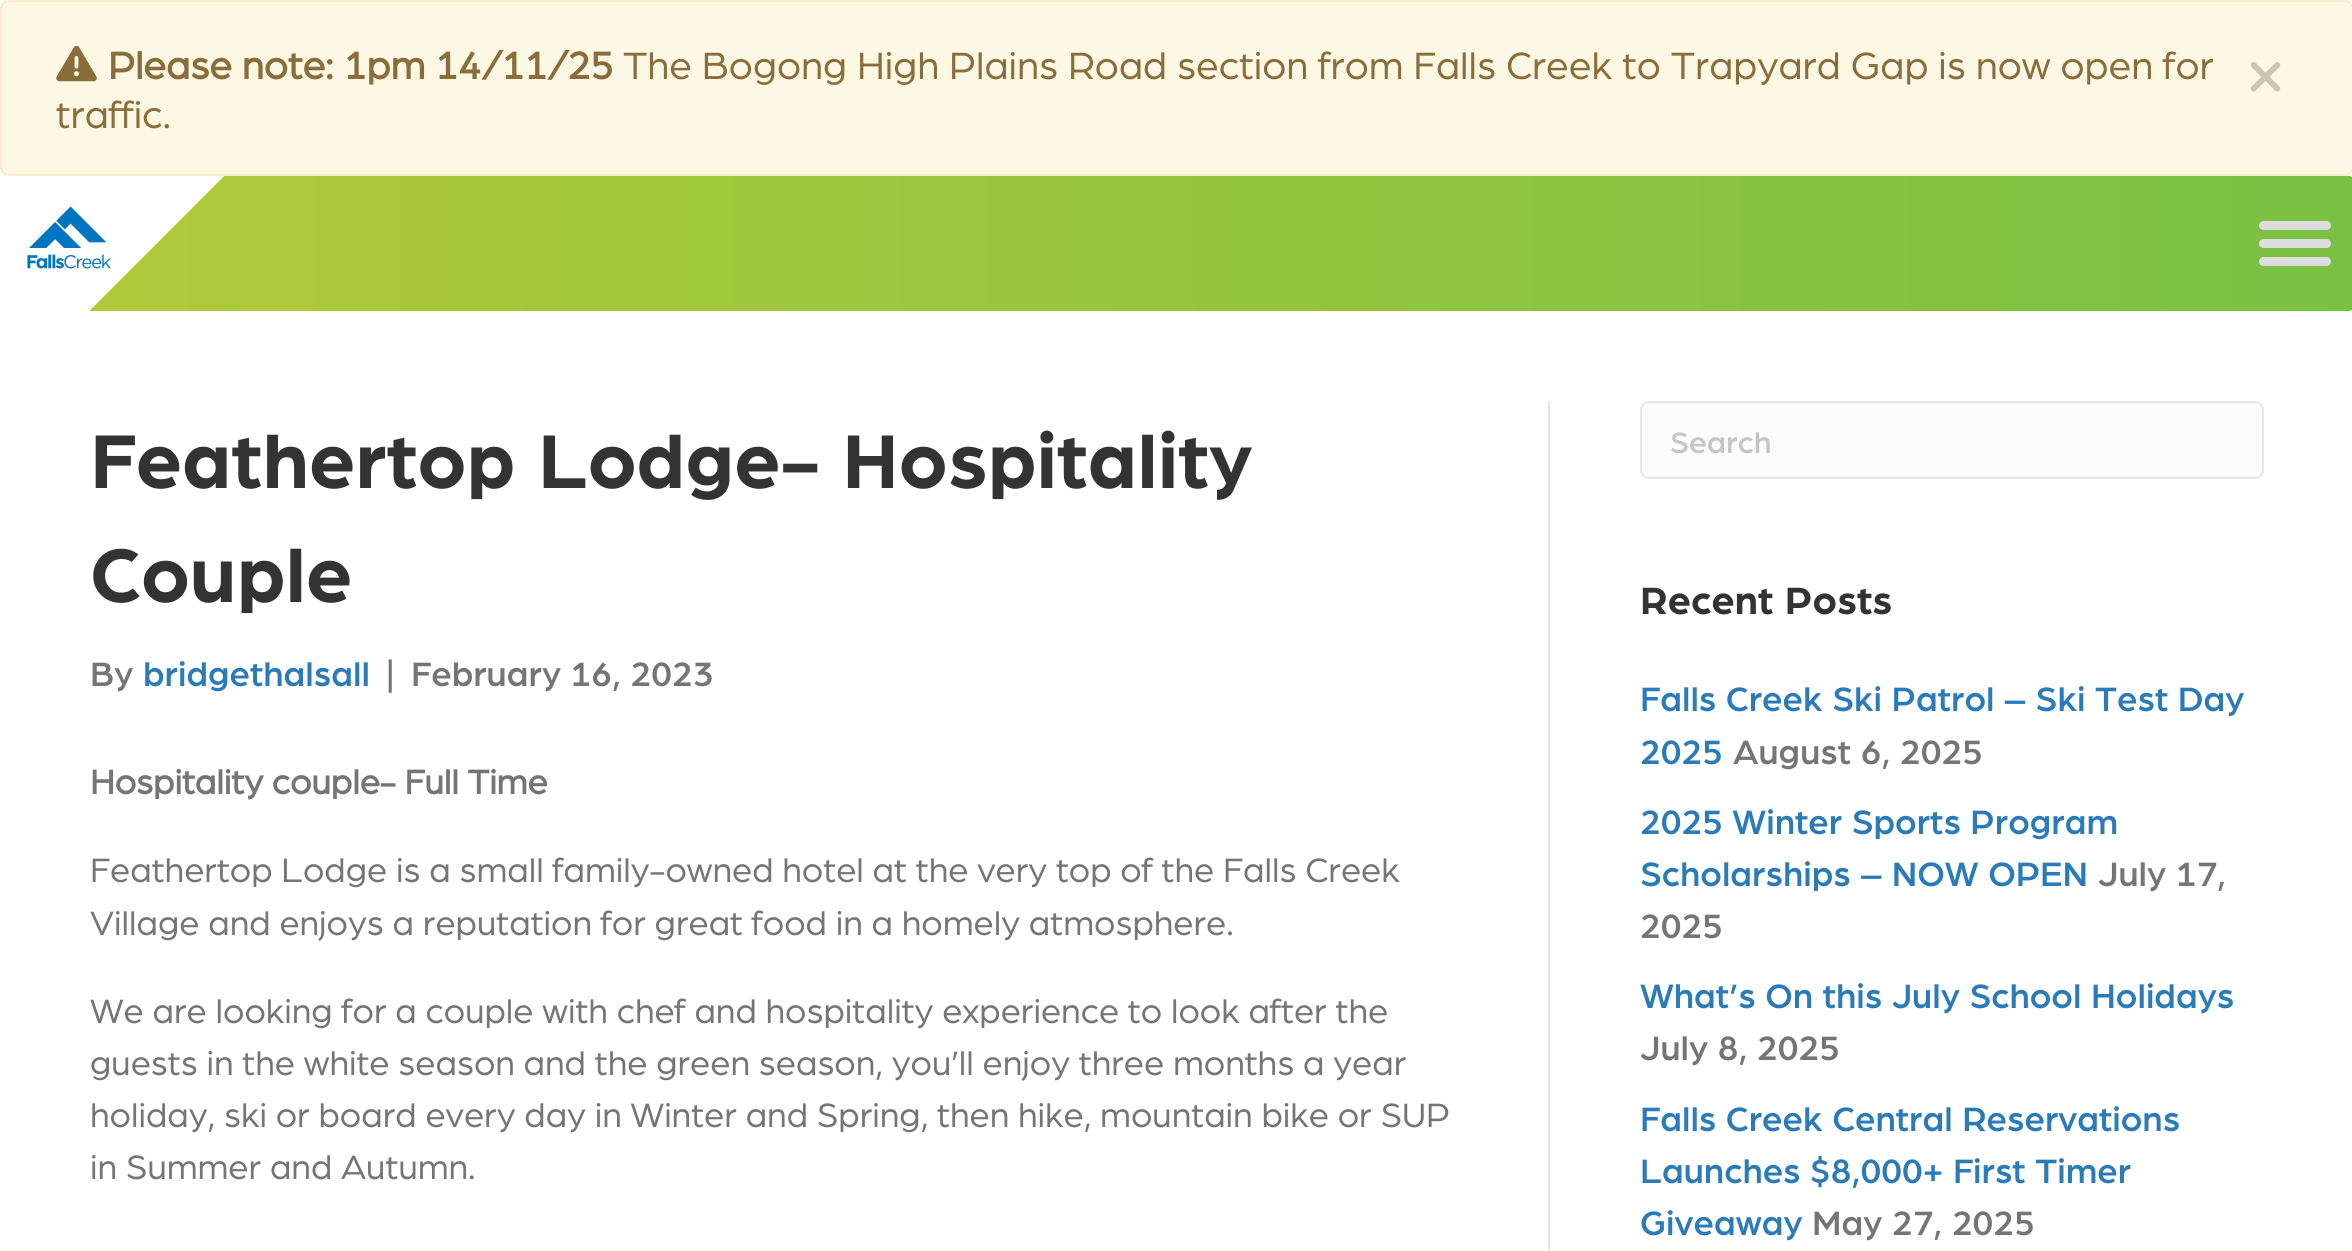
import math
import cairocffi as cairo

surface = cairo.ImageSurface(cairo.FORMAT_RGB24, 2352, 1251)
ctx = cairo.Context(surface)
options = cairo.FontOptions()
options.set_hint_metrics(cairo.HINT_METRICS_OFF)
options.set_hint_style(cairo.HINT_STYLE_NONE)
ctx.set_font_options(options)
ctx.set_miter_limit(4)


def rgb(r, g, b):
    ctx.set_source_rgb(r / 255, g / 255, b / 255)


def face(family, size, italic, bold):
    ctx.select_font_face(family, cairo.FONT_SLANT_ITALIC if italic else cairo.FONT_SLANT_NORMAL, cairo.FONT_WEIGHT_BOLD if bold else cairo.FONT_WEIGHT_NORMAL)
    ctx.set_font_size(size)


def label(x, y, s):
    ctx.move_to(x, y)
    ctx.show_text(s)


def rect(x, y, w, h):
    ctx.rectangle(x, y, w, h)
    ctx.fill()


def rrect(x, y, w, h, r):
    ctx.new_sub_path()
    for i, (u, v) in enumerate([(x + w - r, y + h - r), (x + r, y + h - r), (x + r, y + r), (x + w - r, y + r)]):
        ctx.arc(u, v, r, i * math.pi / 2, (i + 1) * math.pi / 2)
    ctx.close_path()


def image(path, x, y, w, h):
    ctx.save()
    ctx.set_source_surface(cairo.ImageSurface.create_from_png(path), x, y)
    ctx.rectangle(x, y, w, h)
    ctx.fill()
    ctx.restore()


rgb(255, 255, 255)
ctx.paint()
rgb(252, 248, 227)
rrect(1, 1, 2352, 174, 8)
ctx.fill_preserve()
rgb(250, 235, 204)
ctx.stroke()
image('image0.png', 56, 45, 41, 37)
face('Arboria', 40.5, 0, 1)
rgb(138, 109, 59)
label(108, 79, 'Please note: 1pm 14/11/25')
face('Arboria', 40.5, 0, 0)
label(623, 79, 'The Bogong High Plains Road section from Falls Creek to Trapyard Gap is now open for')
label(56, 128, 'traffic.')
image('image1.png', 2250, 62, 31, 30)
gradient = cairo.LinearGradient(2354, 243, 0, 243)
gradient.add_color_stop_rgba(0, 0.478, 0.757, 0.263, 1)
gradient.add_color_stop_rgba(1, 0.698, 0.792, 0.22, 1)
ctx.set_source(gradient)
rrect(0, 176, 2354, 135, 5)
ctx.fill()
image('image2.png', 0, 176, 224, 135)
rgb(221, 221, 221)
rrect(2259, 221, 72, 9, 4.5)
ctx.fill()
rrect(2259, 239, 72, 9, 4.5)
ctx.fill()
rrect(2259, 257, 72, 9, 4.5)
ctx.fill()
rgb(230, 230, 230)
rect(1548, 401, 2, 850)
face('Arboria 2', 81, 0, 1)
rgb(51, 51, 51)
label(90, 488, 'Feathertop Lodge- Hospitality')
label(90, 602, 'Couple')
face('Arboria Medium', 36, 0, 0)
rgb(117, 117, 117)
label(90, 686, 'By')
rgb(43, 123, 185)
label(143, 686, 'bridgethalsall')
rgb(117, 117, 117)
label(386, 686, '|')
label(411, 686, 'February 16, 2023')
face('Arboria', 36, 0, 1)
label(90, 794, 'Hospitality couple- Full Time')
face('Arboria', 36, 0, 0)
label(90, 882, 'Feathertop Lodge is a small family-owned hotel at the very top of the Falls Creek')
label(90, 935, 'Village and enjoys a reputation for great food in a homely atmosphere.')
label(90, 1023, 'We are looking for a couple with chef and hospitality experience to look after the')
label(90, 1075, 'guests in the white season and the green season, you’ll enjoy three months a year')
label(90, 1127, 'holiday, ski or board every day in Winter and Spring, then hike, mountain bike or SUP')
label(90, 1179, 'in Summer and Autumn.')
rgb(252, 252, 252)
rrect(1643, 403, 618, 74, 7)
ctx.fill()
rrect(1641, 402, 622, 76, 8)
rgb(230, 230, 230)
ctx.stroke()
face('Arboria Medium', 31.5, 0, 0)
rgb(198, 198, 198)
label(1670, 453, 'Search')
face('Arboria 2', 40.5, 0, 1)
rgb(51, 51, 51)
label(1640, 614, 'Recent Posts')
face('Arboria Medium', 36, 0, 0)
rgb(43, 123, 185)
label(1640, 711, 'Falls Creek Ski Patrol – Ski Test Day')
label(1640, 764, '2025')
rgb(117, 117, 117)
label(1733, 764, 'August 6, 2025')
rgb(43, 123, 185)
label(1640, 834, '2025 Winter Sports Program')
label(1640, 886, 'Scholarships – NOW OPEN')
rgb(117, 117, 117)
label(2098, 886, 'July 17,')
label(1640, 938, '2025')
rgb(43, 123, 185)
label(1640, 1008, 'What’s On this July School Holidays')
rgb(117, 117, 117)
label(1640, 1060, 'July 8, 2025')
rgb(43, 123, 185)
label(1640, 1131, 'Falls Creek Central Reservations')
label(1640, 1183, 'Launches $8,000+ First Timer')
label(1640, 1235, 'Giveaway')
rgb(117, 117, 117)
label(1812, 1235, 'May 27, 2025')
surface.write_to_png('render.png')
